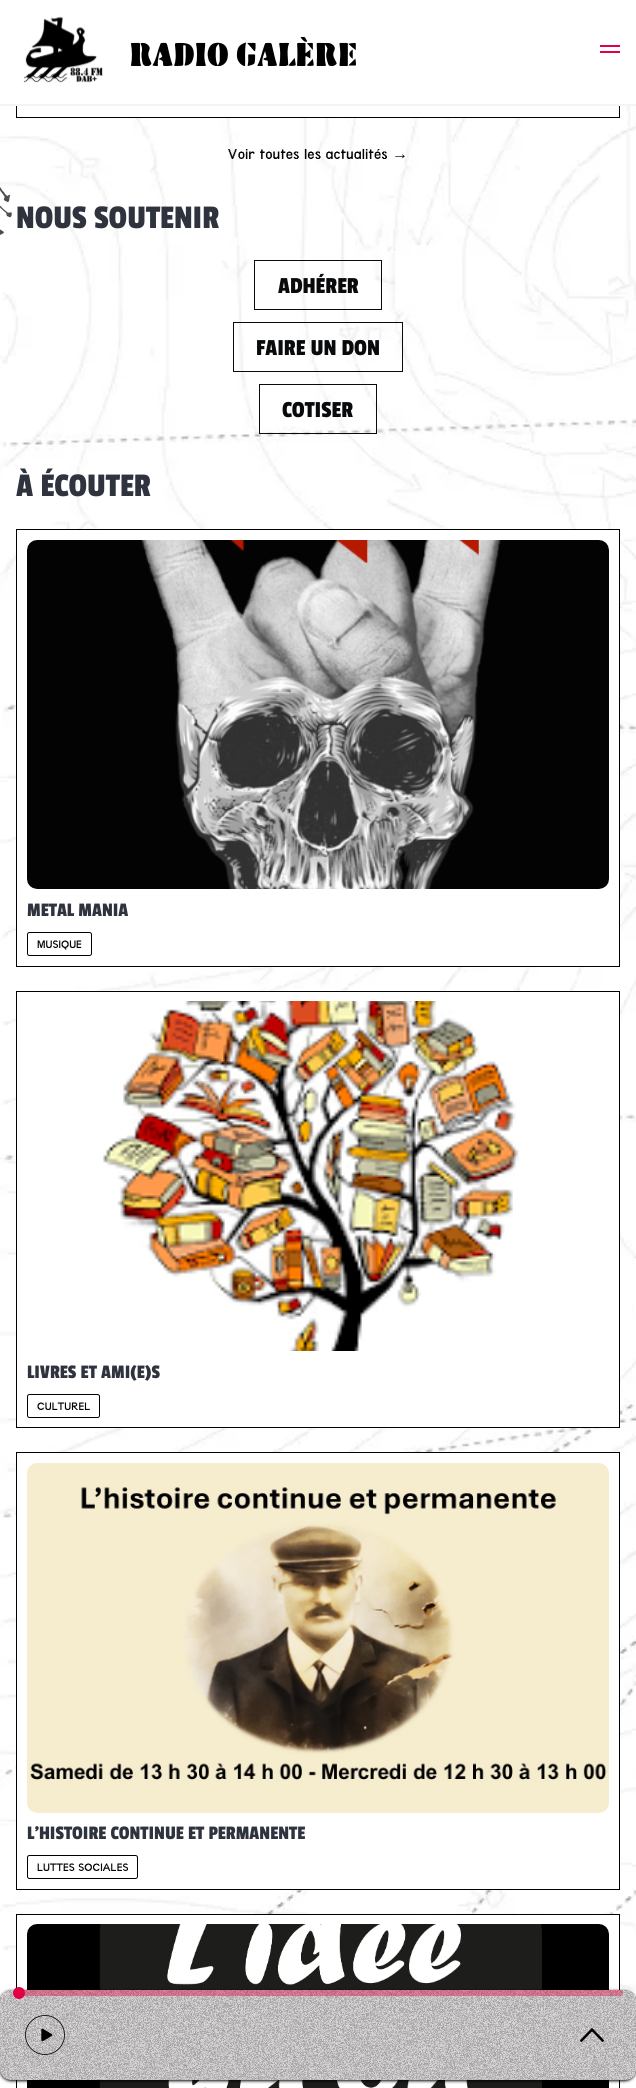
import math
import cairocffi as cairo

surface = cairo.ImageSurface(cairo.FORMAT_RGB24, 636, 2088)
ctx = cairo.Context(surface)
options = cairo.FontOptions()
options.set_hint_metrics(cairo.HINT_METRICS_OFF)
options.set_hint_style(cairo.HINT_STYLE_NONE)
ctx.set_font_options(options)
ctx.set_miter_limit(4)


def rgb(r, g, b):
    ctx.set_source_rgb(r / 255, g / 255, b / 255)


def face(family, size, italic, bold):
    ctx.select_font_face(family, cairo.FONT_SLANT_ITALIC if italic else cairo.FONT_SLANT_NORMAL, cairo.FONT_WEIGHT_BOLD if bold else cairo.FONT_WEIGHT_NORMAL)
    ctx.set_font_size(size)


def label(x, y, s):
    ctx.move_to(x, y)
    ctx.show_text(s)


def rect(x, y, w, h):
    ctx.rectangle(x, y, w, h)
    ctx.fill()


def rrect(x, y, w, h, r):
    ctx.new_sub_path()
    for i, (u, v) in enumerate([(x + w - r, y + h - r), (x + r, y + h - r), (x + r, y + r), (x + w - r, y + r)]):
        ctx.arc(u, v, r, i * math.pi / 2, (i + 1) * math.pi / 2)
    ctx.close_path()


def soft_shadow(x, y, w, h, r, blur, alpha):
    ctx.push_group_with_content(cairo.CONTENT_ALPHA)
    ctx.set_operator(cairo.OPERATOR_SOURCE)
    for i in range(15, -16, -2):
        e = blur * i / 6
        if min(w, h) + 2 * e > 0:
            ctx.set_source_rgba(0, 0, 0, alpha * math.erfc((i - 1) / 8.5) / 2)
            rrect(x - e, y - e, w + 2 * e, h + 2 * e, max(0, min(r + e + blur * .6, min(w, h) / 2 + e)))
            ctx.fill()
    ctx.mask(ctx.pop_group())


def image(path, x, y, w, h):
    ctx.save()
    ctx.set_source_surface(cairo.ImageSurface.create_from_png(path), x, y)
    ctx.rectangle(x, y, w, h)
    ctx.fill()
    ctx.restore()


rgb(255, 255, 255)
ctx.paint()
image('image2.png', 0, 106, 636, 1982)
rgb(255, 255, 255)
rect(126, 106, 403, 11)
ctx.rectangle(16.5, -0.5, 603, 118)
rgb(0, 0, 0)
ctx.set_line_width(1)
ctx.stroke()
rgb(243, 244, 246)
rect(0, 104, 636, 2)
rgb(255, 255, 255)
rect(16, 0, 604, 104)
image('image0.png', 23, 16, 80, 67)
image('image1.png', 131, 37, 225, 29)
rgb(224, 0, 67)
rect(600, 45, 20, 2)
rect(600, 51, 20, 2)
face('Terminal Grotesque', 16, 0, 0)
rgb(0, 0, 0)
label(228, 159, 'Voir toutes les actualités')
face('Liberation Serif', 16, 0, 0)
label(392, 159, '→')
image('image3.png', 0, 187, 12, 48)
face('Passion', 34.5, 0, 0)
rgb(46, 51, 61)
label(16, 228, 'NOUS SOUTENIR')
ctx.rectangle(254.5, 260.5, 127, 49)
rgb(9, 10, 12)
ctx.stroke()
face('Passion', 24, 0, 0)
label(278, 293, 'ADHÉRER')
ctx.rectangle(233.5, 322.5, 169, 49)
ctx.stroke()
label(256, 355, 'FAIRE UN DON')
ctx.rectangle(259.5, 384.5, 117, 49)
ctx.stroke()
label(282, 417, 'COTISER')
face('Passion', 34.5, 0, 0)
rgb(46, 51, 61)
label(16, 496, 'À ÉCOUTER')
rgb(255, 255, 255)
ctx.rectangle(16.5, 529.5, 603, 437)
ctx.fill_preserve()
rgb(0, 0, 0)
ctx.stroke()
image('image4.png', 27, 540, 582, 349)
face('Passion', 20, 0, 0)
rgb(46, 51, 61)
label(27, 916, 'METAL MANIA')
rrect(27.5, 932.5, 64, 23, 2)
rgb(0, 0, 0)
ctx.stroke()
face('Terminal Grotesque', 12, 0, 0)
label(37, 948, 'MUSIQUE')
rgb(255, 255, 255)
ctx.rectangle(16.5, 991.5, 603, 436)
ctx.fill_preserve()
rgb(0, 0, 0)
ctx.stroke()
image('image5.png', 103, 1001, 416, 350)
face('Passion', 20, 0, 0)
rgb(46, 51, 61)
label(27, 1378, 'LIVRES ET AMI(E)S')
rrect(27.5, 1394.5, 72, 23, 2)
rgb(0, 0, 0)
ctx.stroke()
face('Terminal Grotesque', 12, 0, 0)
label(37, 1410, 'CULTUREL')
rgb(255, 255, 255)
ctx.rectangle(16.5, 1452.5, 603, 437)
ctx.fill_preserve()
rgb(0, 0, 0)
ctx.stroke()
image('image6.png', 27, 1463, 582, 350)
face('Passion', 20, 0, 0)
rgb(46, 51, 61)
label(27, 1839, 'L’HISTOIRE CONTINUE ET PERMANENTE')
rrect(27.5, 1855.5, 110, 23, 2)
rgb(0, 0, 0)
ctx.stroke()
face('Terminal Grotesque', 12, 0, 0)
label(37, 1871, 'LUTTES SOCIALES')
rgb(255, 255, 255)
ctx.rectangle(16.5, 1914.5, 603, 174)
ctx.fill_preserve()
rgb(0, 0, 0)
ctx.stroke()
image('image7.png', 27, 1924, 582, 164)
rgb(0, 0, 0)
soft_shadow(0, 1991, 636, 90, 11, 1.5, 1)
image('image8.png', 0, 1990, 636, 90)
ctx.set_source_rgba(0.886, 0, 0.267, 0.4)
rrect(13, 1990, 610, 6, 3)
ctx.fill()
rgb(226, 0, 68)
ctx.arc(19, 1993, 6, 0, 2 * math.pi)
ctx.fill()
image('image9.png', 25, 2015, 40, 40)
image('image10.png', 580, 2028, 24, 14)
surface.write_to_png('render.png')
